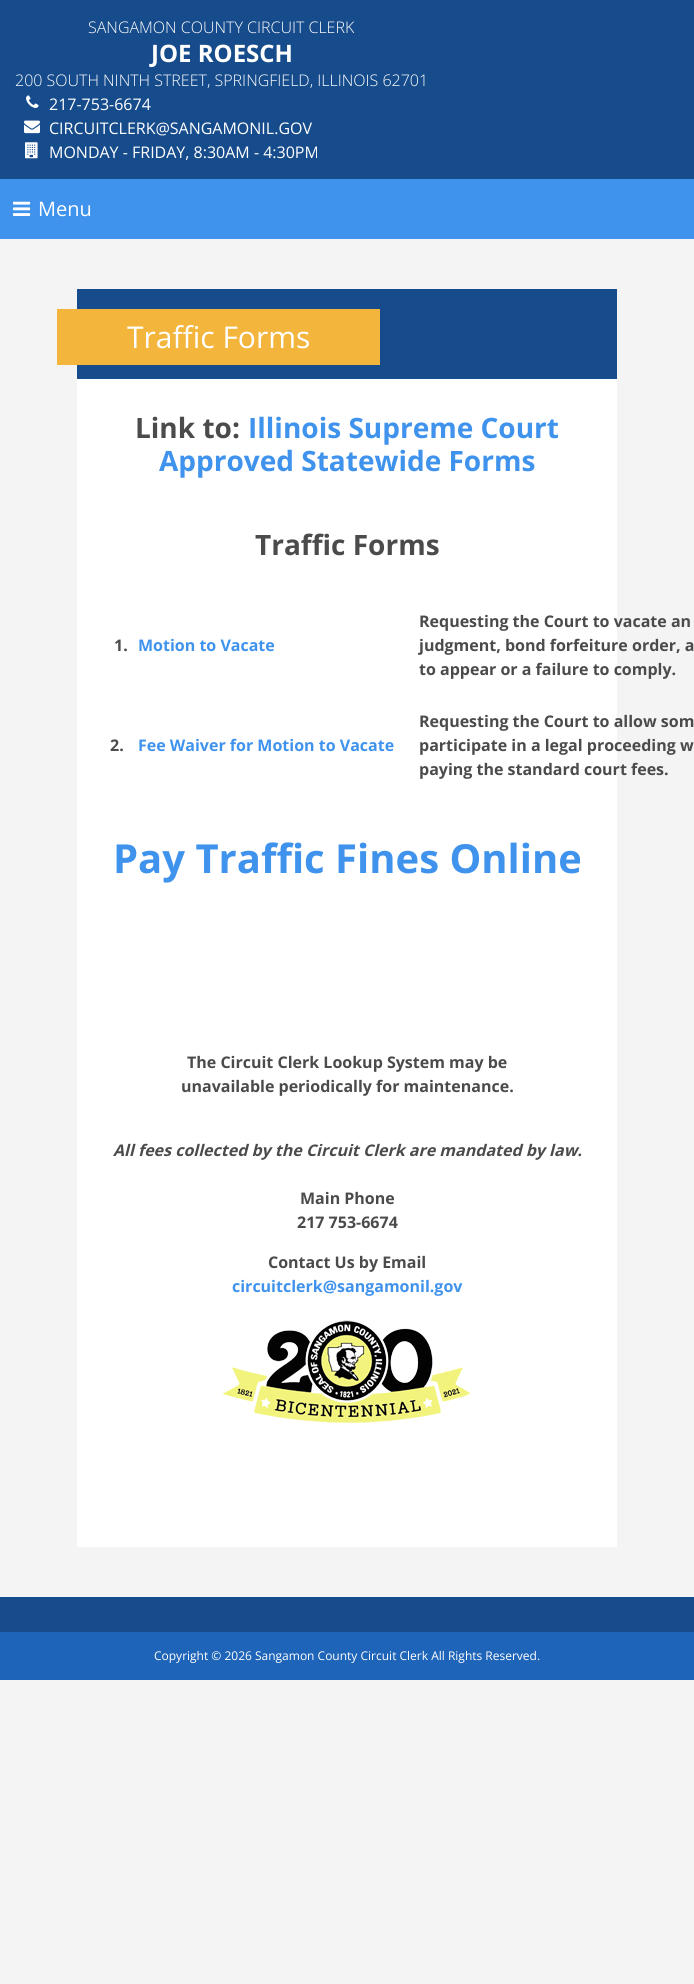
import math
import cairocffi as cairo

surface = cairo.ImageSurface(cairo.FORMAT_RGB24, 694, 1984)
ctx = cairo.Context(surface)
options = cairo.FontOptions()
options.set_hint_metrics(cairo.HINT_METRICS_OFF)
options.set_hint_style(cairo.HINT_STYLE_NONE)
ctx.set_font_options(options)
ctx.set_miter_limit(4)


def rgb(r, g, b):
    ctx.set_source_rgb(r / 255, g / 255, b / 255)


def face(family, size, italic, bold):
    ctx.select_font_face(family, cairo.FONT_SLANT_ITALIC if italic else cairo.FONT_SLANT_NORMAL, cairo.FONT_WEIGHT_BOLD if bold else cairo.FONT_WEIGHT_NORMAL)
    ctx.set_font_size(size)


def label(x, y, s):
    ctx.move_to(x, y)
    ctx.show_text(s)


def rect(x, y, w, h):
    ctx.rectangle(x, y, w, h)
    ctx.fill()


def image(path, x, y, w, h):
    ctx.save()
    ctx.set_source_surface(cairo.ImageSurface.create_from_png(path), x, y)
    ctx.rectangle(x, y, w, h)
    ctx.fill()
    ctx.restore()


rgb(244, 244, 244)
ctx.paint()
rgb(23, 76, 140)
rect(0, 0, 694, 179)
face('Open Sans Light', 16, 0, 0)
rgb(255, 255, 255)
label(88, 33, 'SANGAMON COUNTY CIRCUIT CLERK')
face('Open Sans', 24, 0, 1)
label(151, 62, 'JOE ROESCH')
face('Open Sans Light', 16, 0, 0)
label(15, 86, '200 SOUTH NINTH STREET, SPRINGFIELD, ILLINOIS 62701')
image('image0.png', 26, 95, 13, 13)
face('Open Sans', 16, 0, 0)
label(49, 110, '217-753-6674')
image('image1.png', 24, 120, 16, 14)
label(49, 134, 'CIRCUITCLERK@SANGAMONIL.GOV')
image('image2.png', 25, 142, 13, 17)
label(49, 158, 'MONDAY - FRIDAY, 8:30AM - 4:30PM')
rgb(63, 147, 237)
rect(0, 179, 694, 60)
image('image3.png', 13, 201, 18, 15)
face('Open Sans', 20, 0, 0)
rgb(255, 255, 255)
label(38, 216, 'Menu')
rect(77, 379, 540, 1168)
rgb(23, 76, 140)
rect(77, 289, 540, 90)
rgb(243, 181, 60)
rect(57, 309, 323, 56)
face('Open Sans', 30, 0, 0)
rgb(255, 255, 255)
label(127, 348, 'Traffic Forms')
face('Open Sans', 28, 0, 1)
rgb(75, 75, 75)
label(135, 438, 'Link to:')
rgb(63, 147, 237)
label(248, 438, 'Illinois Supreme Court')
label(159, 471, 'Approved Statewide Forms')
rgb(75, 75, 75)
label(255, 555, 'Traffic Forms')
face('Open Sans', 16, 0, 1)
label(114, 651, '1.')
rgb(63, 147, 237)
label(138, 651, 'Motion to Vacate')
rgb(75, 75, 75)
label(419, 627, 'Requesting the Court to vacate an')
label(419, 651, 'judgment, bond forfeiture order, a')
label(419, 675, 'to appear or a failure to comply.')
label(110, 751, '2.')
rgb(63, 147, 237)
label(138, 751, 'Fee Waiver for Motion to Vacate')
rgb(75, 75, 75)
label(419, 727, 'Requesting the Court to allow som')
label(419, 751, 'participate in a legal proceeding w')
label(419, 775, 'paying the standard court fees.')
face('Open Sans', 40, 0, 1)
rgb(63, 147, 237)
label(113, 873, 'Pay Traffic Fines Online')
face('Open Sans', 16, 0, 1)
rgb(75, 75, 75)
label(187, 1068, 'The Circuit Clerk Lookup System may be')
label(181, 1092, 'unavailable periodically for maintenance.')
face('Open Sans', 16, 1, 1)
label(113, 1156, 'All fees collected by the Circuit Clerk are mandated by law.')
face('Open Sans', 16, 0, 1)
label(300, 1204, 'Main Phone')
label(297, 1228, '217 753-6674')
label(268, 1268, 'Contact Us by Email')
rgb(63, 147, 237)
label(232, 1292, 'circuitclerk@sangamonil.gov')
image('image4.png', 222, 1320, 249, 103)
rgb(23, 76, 140)
rect(0, 1597, 694, 35)
rgb(30, 100, 184)
rect(0, 1632, 694, 48)
face('Open Sans', 12, 0, 0)
rgb(255, 255, 255)
label(154, 1660, 'Copyright © 2026 Sangamon County Circuit Clerk All Rights Reserved.')
surface.write_to_png('render.png')
